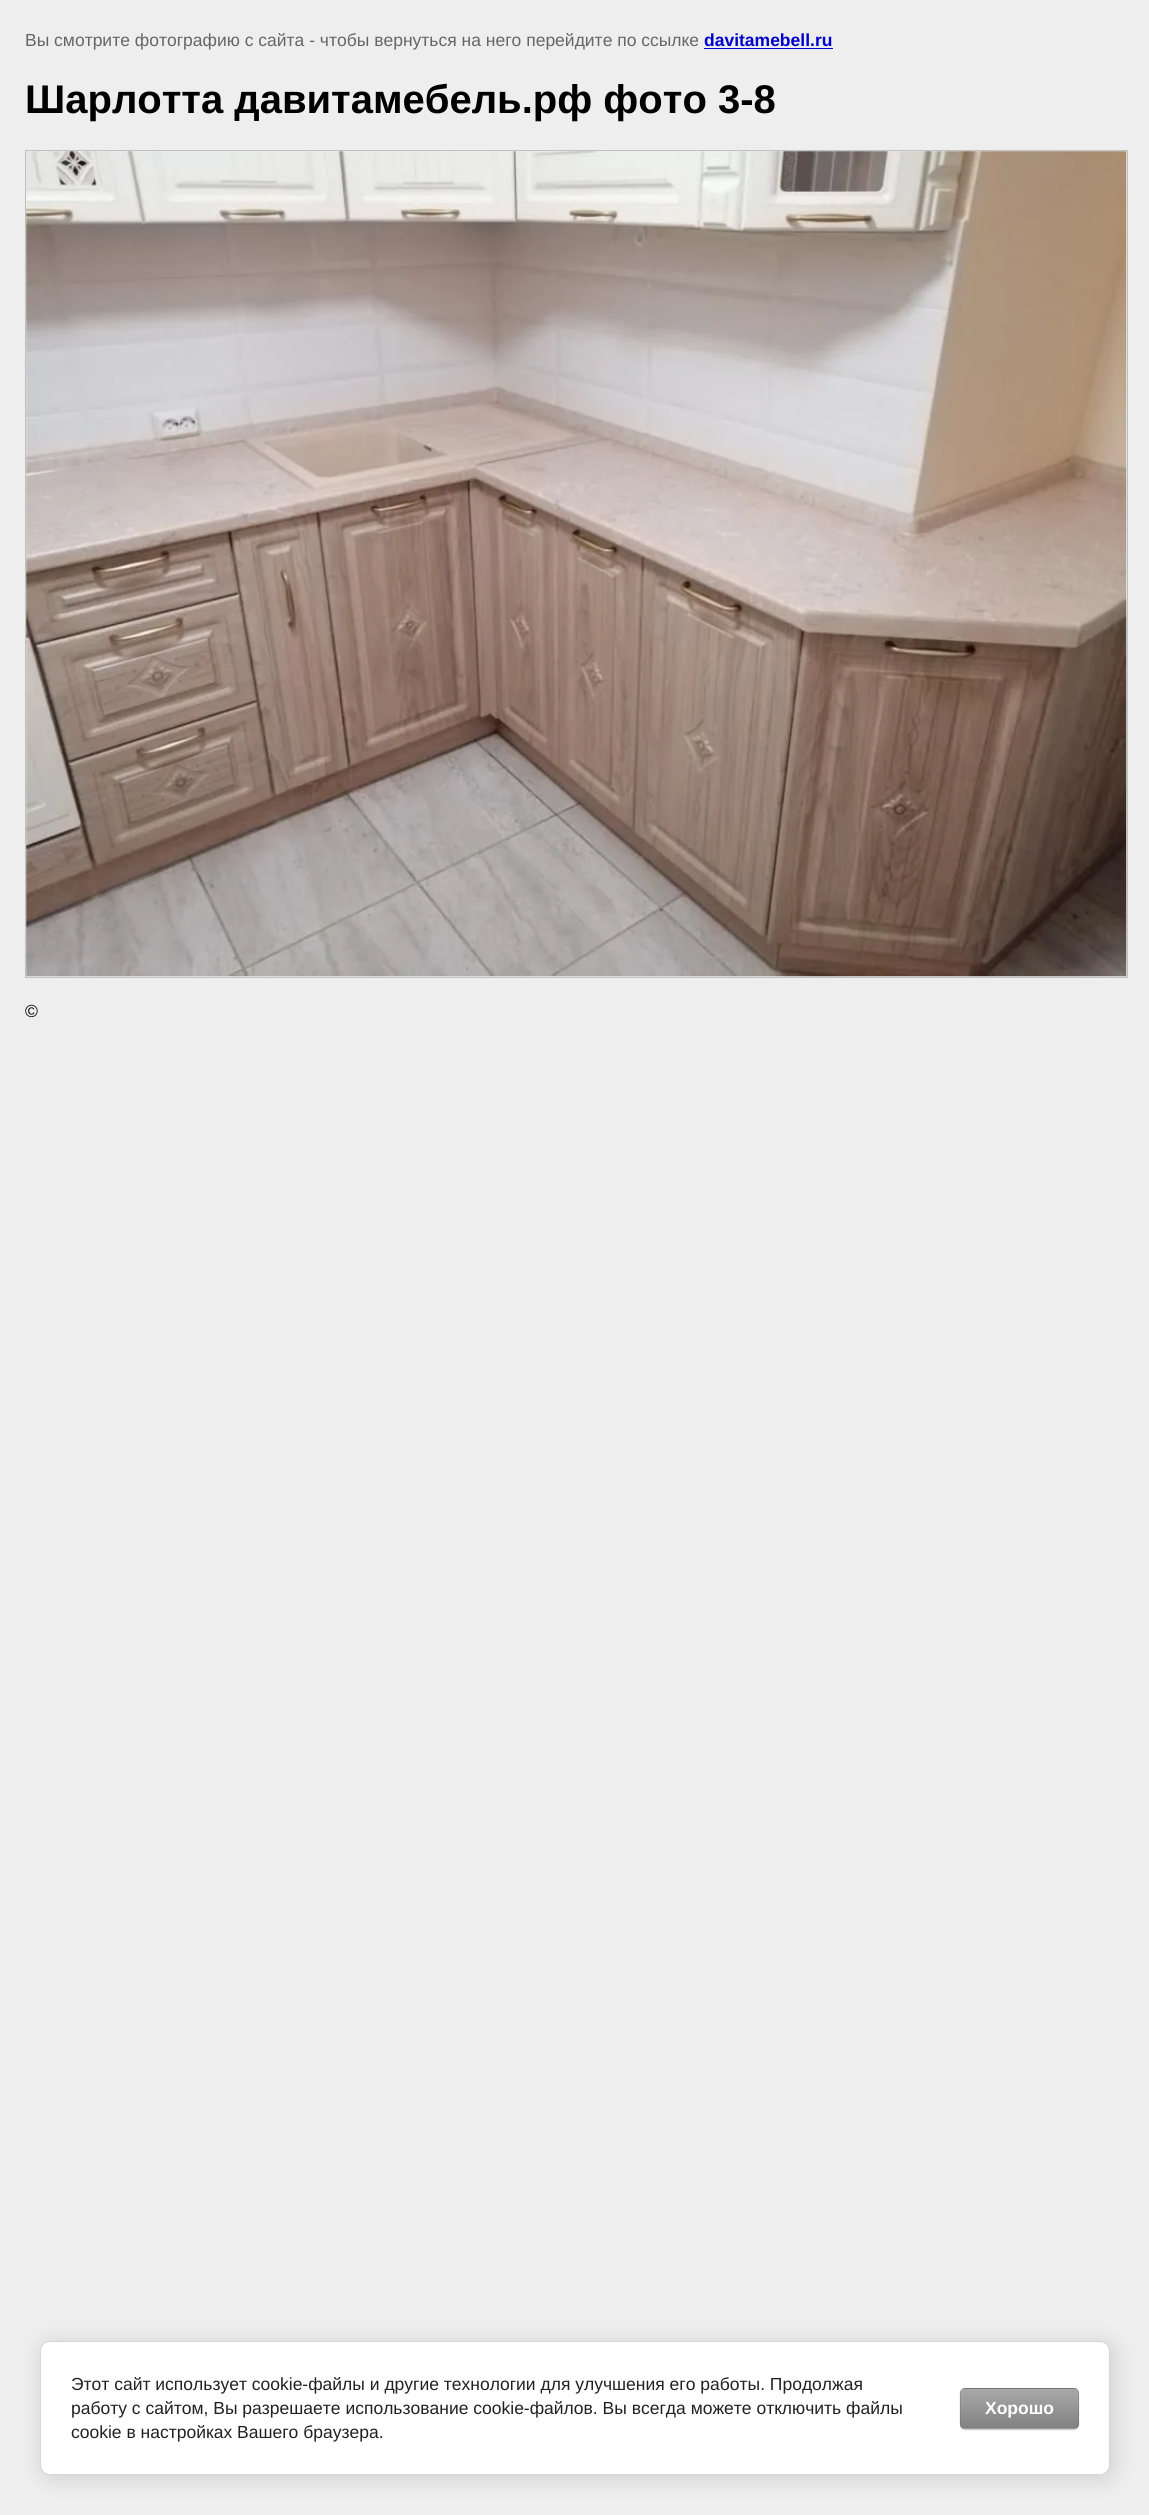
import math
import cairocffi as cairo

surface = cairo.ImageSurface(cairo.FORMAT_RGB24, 1149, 2515)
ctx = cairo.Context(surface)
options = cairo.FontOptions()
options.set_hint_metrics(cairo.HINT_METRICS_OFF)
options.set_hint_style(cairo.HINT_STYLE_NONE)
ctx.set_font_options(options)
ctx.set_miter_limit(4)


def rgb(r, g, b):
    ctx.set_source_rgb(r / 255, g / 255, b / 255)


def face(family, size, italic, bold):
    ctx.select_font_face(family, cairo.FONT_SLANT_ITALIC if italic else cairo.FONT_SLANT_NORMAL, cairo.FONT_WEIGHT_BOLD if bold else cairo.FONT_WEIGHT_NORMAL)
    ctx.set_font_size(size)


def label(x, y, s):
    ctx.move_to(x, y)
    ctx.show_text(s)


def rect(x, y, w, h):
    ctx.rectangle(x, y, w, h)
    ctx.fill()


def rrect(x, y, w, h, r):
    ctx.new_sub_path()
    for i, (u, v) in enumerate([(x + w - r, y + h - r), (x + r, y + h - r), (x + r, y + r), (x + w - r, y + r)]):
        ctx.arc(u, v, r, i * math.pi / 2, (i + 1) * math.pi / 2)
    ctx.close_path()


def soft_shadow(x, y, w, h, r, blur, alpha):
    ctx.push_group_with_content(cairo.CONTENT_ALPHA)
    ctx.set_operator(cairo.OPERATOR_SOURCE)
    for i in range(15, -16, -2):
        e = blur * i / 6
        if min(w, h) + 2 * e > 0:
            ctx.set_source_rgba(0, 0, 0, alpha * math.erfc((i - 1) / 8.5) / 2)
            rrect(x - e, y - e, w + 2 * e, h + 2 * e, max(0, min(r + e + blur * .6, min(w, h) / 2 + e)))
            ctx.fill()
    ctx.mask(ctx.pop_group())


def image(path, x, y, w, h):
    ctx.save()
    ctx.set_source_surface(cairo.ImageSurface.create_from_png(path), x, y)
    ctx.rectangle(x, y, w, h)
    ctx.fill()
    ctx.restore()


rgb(238, 238, 238)
ctx.paint()
face('Liberation Sans', 17.5, 0, 0)
rgb(102, 102, 102)
label(25, 46, 'Вы смотрите фотографию с сайта - чтобы вернуться на него перейдите по ссылке')
face('Liberation Sans', 17.5, 0, 1)
rgb(0, 0, 204)
label(704, 46, 'davitamebell.ru')
rect(704, 48, 129, 1)
face('Liberation Sans', 40, 0, 1)
rgb(0, 0, 0)
label(25, 113, 'Шарлотта давитамебель.рф фото 3-8')
ctx.rectangle(25.5, 150.5, 1102, 827)
rgb(192, 192, 192)
ctx.set_line_width(1)
ctx.stroke()
image('image0.png', 26, 151, 1101, 826)
face('Liberation Sans', 17.5, 0, 0)
rgb(0, 0, 0)
label(25, 1017, '©')
rgb(0, 0, 0)
soft_shadow(43, 2344, 1070, 134, 10, 11, 0.14)
rgb(255, 255, 255)
rrect(40.5, 2341.5, 1069, 133, 9.5)
ctx.fill_preserve()
rgb(214, 214, 214)
ctx.stroke()
rgb(33, 33, 33)
label(71, 2390, 'Этот сайт использует cookie-файлы и другие технологии для улучшения его работы. Продолжая')
label(71, 2414, 'работу с сайтом, Вы разрешаете использование cookie-файлов. Вы всегда можете отключить файлы')
label(71, 2438, 'cookie в настройках Вашего браузера.')
rgb(0, 0, 0)
soft_shadow(960, 2389, 119, 41, 5, 0.5, 0.2)
ctx.save()
rrect(960, 2388, 119, 41, 5)
ctx.clip()
gradient = cairo.LinearGradient(1019, 2350, 1019, 2389)
gradient.add_color_stop_rgba(0, 0.659, 0.659, 0.659, 1)
gradient.add_color_stop_rgba(1, 0.51, 0.51, 0.51, 1)
ctx.set_source(gradient)
rect(960, 2388, 119, 1)
gradient = cairo.LinearGradient(1019, 2389, 1019, 2428)
gradient.add_color_stop_rgba(0, 0.659, 0.659, 0.659, 1)
gradient.add_color_stop_rgba(1, 0.51, 0.51, 0.51, 1)
ctx.set_source(gradient)
rect(960, 2389, 119, 39)
gradient = cairo.LinearGradient(1019, 2428, 1019, 2466)
gradient.add_color_stop_rgba(0, 0.659, 0.659, 0.659, 1)
gradient.add_color_stop_rgba(1, 0.51, 0.51, 0.51, 1)
ctx.set_source(gradient)
rect(960, 2428, 119, 1)
ctx.restore()
rrect(960.5, 2388.5, 118, 40, 4.5)
ctx.set_source_rgba(0, 0, 0, 0.1)
ctx.stroke()
face('Liberation Sans', 17.5, 0, 1)
rgb(255, 255, 255)
label(985, 2414, 'Хорошо')
surface.write_to_png('render.png')
